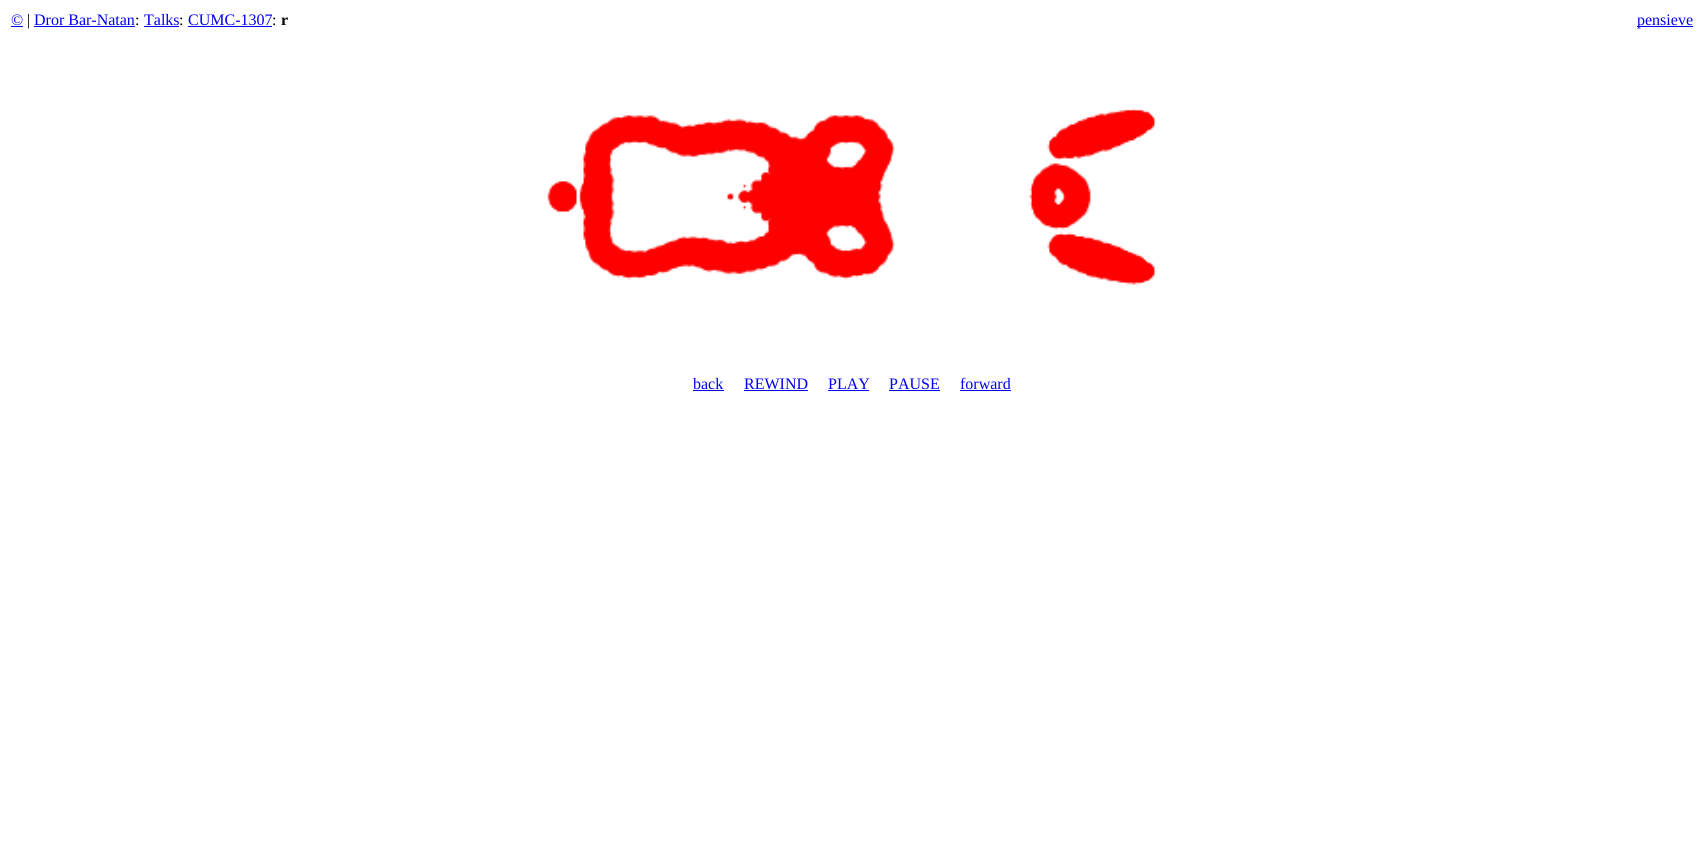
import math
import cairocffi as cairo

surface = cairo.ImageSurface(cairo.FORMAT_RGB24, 1704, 845)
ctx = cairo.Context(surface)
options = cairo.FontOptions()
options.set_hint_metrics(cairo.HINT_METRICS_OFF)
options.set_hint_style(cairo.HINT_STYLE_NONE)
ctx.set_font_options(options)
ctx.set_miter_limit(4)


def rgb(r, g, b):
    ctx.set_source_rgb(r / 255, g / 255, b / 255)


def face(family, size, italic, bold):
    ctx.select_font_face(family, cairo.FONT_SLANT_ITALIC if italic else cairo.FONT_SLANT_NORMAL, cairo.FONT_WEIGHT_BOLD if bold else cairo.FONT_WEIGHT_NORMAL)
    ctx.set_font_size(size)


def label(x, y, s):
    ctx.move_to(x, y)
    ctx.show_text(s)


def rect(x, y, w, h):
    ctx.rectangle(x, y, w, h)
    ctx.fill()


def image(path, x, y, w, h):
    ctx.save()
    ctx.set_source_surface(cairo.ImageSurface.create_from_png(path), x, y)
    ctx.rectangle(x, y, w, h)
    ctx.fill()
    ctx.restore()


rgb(255, 255, 255)
ctx.paint()
face('Liberation Serif', 16, 0, 0)
rgb(0, 0, 238)
label(11, 25, '©')
rect(11, 26, 12, 1)
rgb(0, 0, 0)
label(27, 25, '|')
rgb(0, 0, 238)
label(34, 25, 'Dror Bar-Natan')
rect(34, 26, 101, 1)
rgb(0, 0, 0)
label(135, 25, ':')
rgb(0, 0, 238)
label(144, 25, 'Talks')
rect(144, 26, 35, 1)
rgb(0, 0, 0)
label(179, 25, ':')
rgb(0, 0, 238)
label(188, 25, 'CUMC-1307')
rect(188, 26, 84, 1)
rgb(0, 0, 0)
label(272, 25, ':')
face('Liberation Serif', 16, 0, 1)
label(281, 25, 'r')
rgb(0, 0, 238)
rect(1637, 26, 56, 1)
face('Liberation Serif', 16, 0, 0)
label(1637, 25, 'pensieve')
image('image0.png', 547, 108, 610, 177)
label(693, 389, 'back')
rect(693, 390, 31, 1)
label(744, 389, 'REWIND')
rect(744, 390, 64, 1)
label(828, 389, 'PLAY')
rect(828, 390, 41, 1)
label(889, 389, 'PAUSE')
rect(889, 390, 51, 1)
label(960, 389, 'forward')
rect(960, 390, 51, 1)
surface.write_to_png('render.png')
